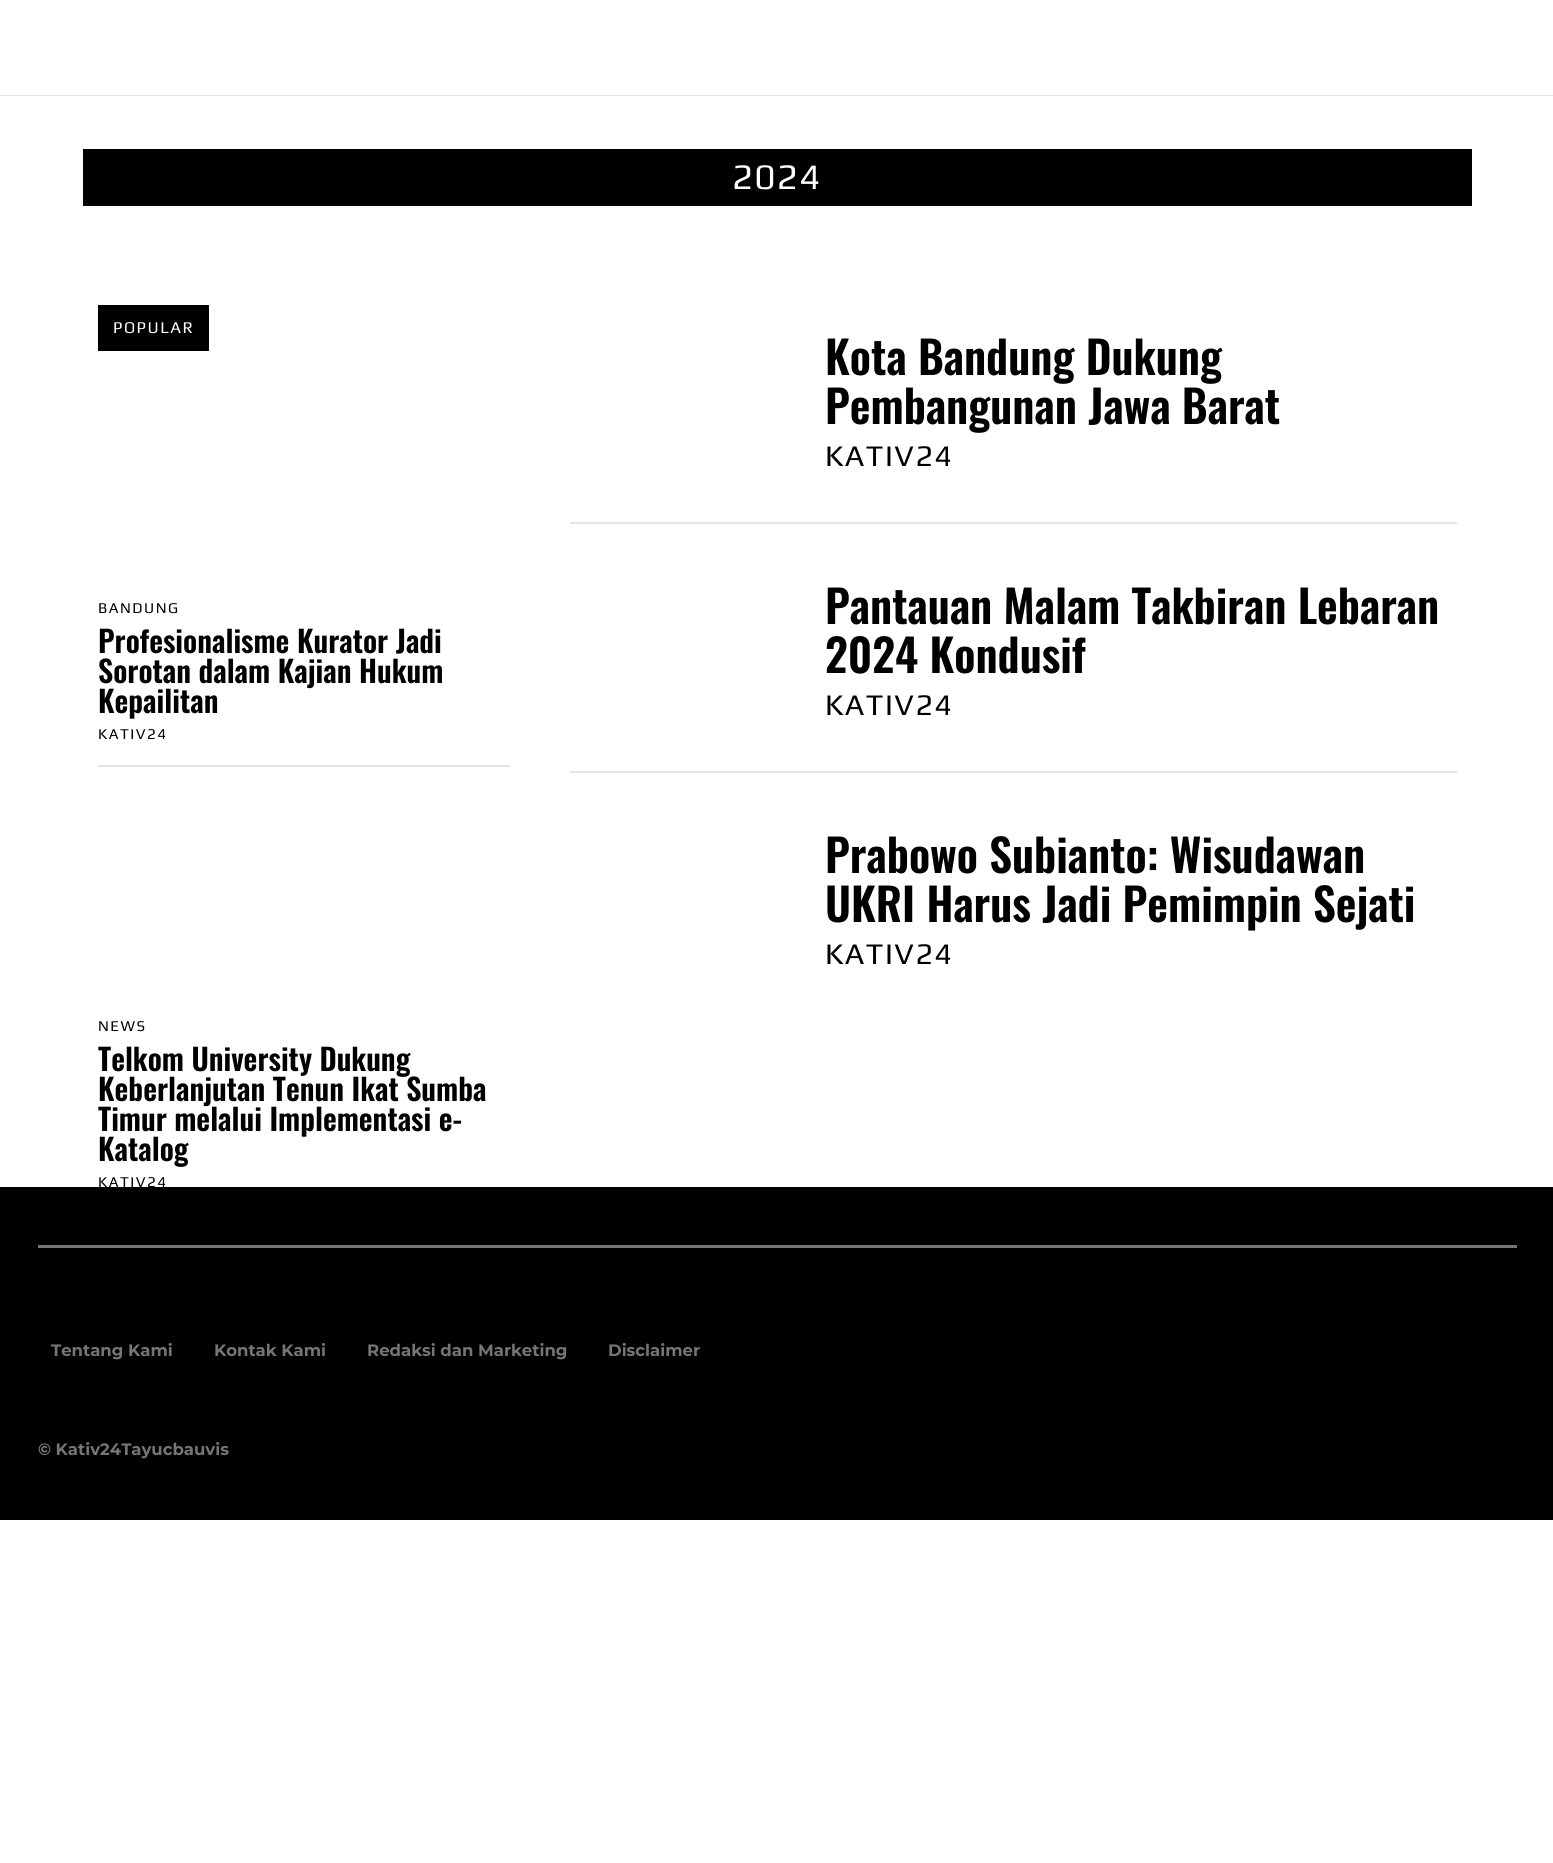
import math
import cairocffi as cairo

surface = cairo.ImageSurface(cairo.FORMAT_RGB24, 1553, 1863)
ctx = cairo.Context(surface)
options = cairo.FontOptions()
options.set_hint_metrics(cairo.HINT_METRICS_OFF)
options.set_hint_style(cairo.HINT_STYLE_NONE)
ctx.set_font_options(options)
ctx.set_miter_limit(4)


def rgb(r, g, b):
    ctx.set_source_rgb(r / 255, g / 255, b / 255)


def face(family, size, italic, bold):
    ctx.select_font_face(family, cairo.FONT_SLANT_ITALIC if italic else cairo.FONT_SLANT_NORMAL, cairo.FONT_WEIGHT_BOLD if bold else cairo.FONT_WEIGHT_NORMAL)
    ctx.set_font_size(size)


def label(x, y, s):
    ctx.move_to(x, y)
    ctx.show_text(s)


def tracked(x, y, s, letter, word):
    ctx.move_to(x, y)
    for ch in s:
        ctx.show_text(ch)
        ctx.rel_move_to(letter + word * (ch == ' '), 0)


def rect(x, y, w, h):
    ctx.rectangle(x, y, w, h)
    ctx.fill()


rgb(255, 255, 255)
ctx.paint()
rgb(229, 229, 229)
rect(0, 95, 1553, 1)
rgb(0, 0, 0)
rect(83, 149, 1389, 57)
face('Play', 36, 0, 0)
rgb(255, 255, 255)
tracked(732, 189, '2024', 1.5, 0)
rgb(0, 0, 0)
rect(98, 305, 111, 46)
face('Play', 16.5, 0, 0)
rgb(255, 255, 255)
tracked(113, 333, 'POPULAR', 1.5, 0)
face('Play', 15, 0, 0)
rgb(0, 0, 0)
tracked(98, 613, 'BANDUNG', 1.5, 0)
face('Oswald SemiBold', 30, 0, 0)
label(98, 653, 'Profesionalisme Kurator Jadi')
label(98, 683, 'Sorotan dalam Kajian Hukum')
label(98, 713, 'Kepailitan')
face('Play', 15, 0, 0)
tracked(98, 739, 'KATIV24', 1.5, 0)
rgb(229, 229, 229)
rect(98, 765, 412, 2)
rgb(0, 0, 0)
tracked(98, 1031, 'NEWS', 1.5, 0)
face('Oswald SemiBold', 30, 0, 0)
label(98, 1071, 'Telkom University Dukung')
label(98, 1101, 'Keberlanjutan Tenun Ikat Sumba')
label(98, 1131, 'Timur melalui Implementasi e-')
label(98, 1161, 'Katalog')
face('Play', 15, 0, 0)
tracked(98, 1187, 'KATIV24', 1.5, 0)
face('Oswald SemiBold', 45, 0, 0)
label(825, 375, 'Kota Bandung Dukung')
label(825, 424, 'Pembangunan Jawa Barat')
face('Play', 30, 0, 0)
tracked(825, 466, 'KATIV24', 1.5, 0)
rgb(229, 229, 229)
rect(570, 522, 887, 2)
face('Oswald SemiBold', 45, 0, 0)
rgb(0, 0, 0)
label(825, 624, 'Pantauan Malam Takbiran Lebaran')
label(825, 673, '2024 Kondusif')
face('Play', 30, 0, 0)
tracked(825, 715, 'KATIV24', 1.5, 0)
rgb(229, 229, 229)
rect(570, 771, 887, 2)
face('Oswald SemiBold', 45, 0, 0)
rgb(0, 0, 0)
label(825, 873, 'Prabowo Subianto: Wisudawan')
label(825, 922, 'UKRI Harus Jadi Pemimpin Sejati')
face('Play', 30, 0, 0)
tracked(825, 964, 'KATIV24', 1.5, 0)
rect(0, 1187, 1553, 333)
rgb(117, 117, 117)
rect(38, 1245, 1479, 3)
face('Montserrat', 16.5, 0, 1)
label(51, 1356, 'Tentang Kami')
label(214, 1356, 'Kontak Kami')
label(367, 1356, 'Redaksi dan Marketing')
label(608, 1356, 'Disclaimer')
label(38, 1455, '© Kativ24Tayucbauvis')
surface.write_to_png('render.png')
